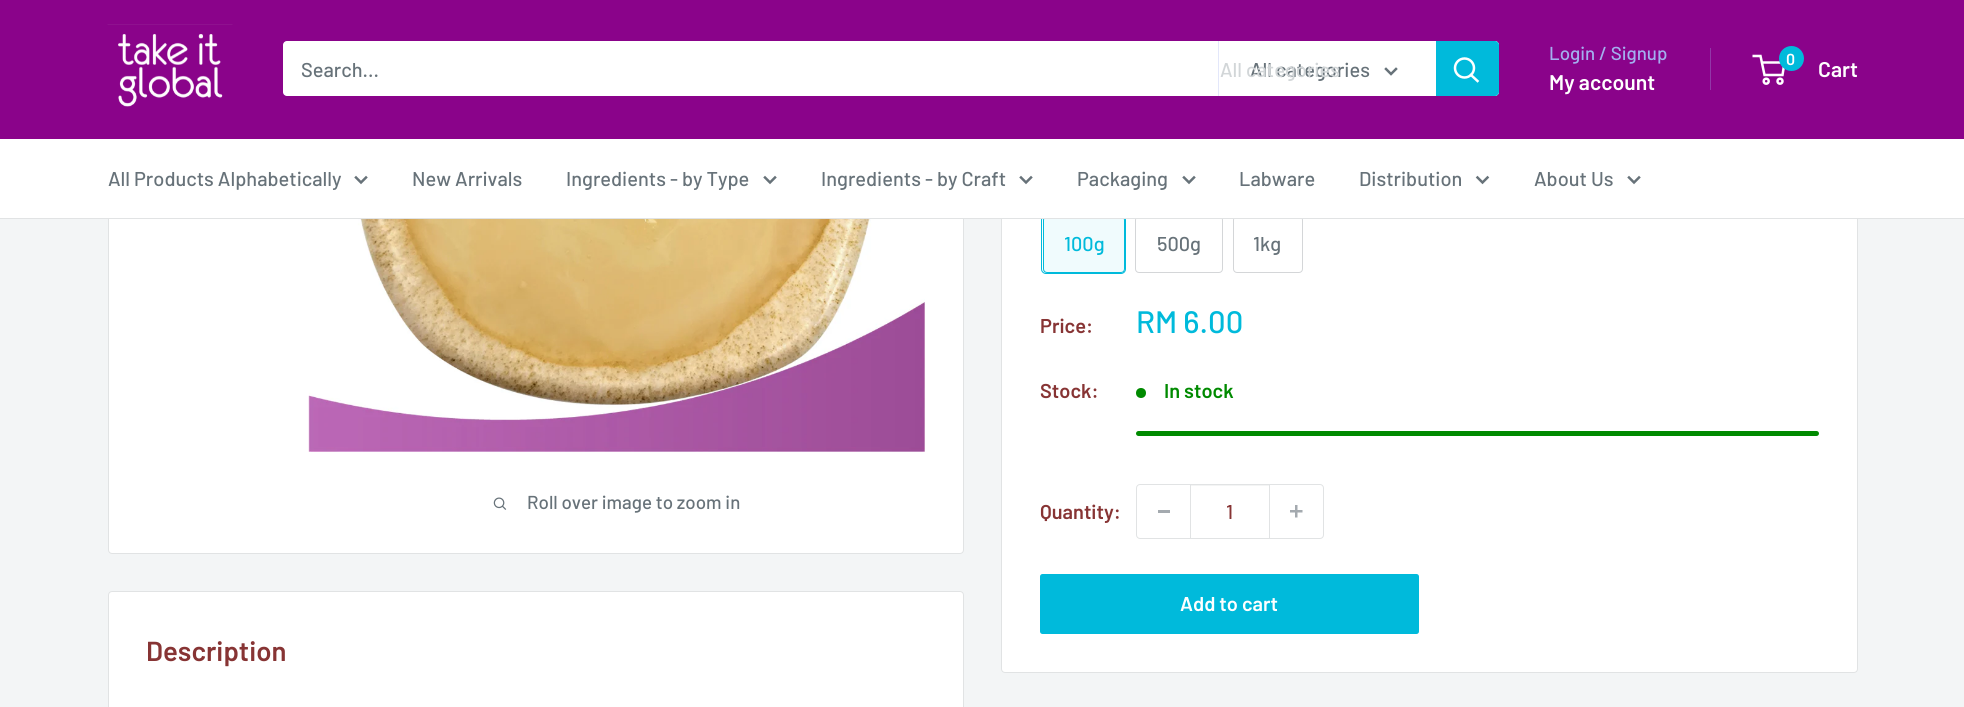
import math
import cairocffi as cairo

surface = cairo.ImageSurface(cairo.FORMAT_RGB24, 1964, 707)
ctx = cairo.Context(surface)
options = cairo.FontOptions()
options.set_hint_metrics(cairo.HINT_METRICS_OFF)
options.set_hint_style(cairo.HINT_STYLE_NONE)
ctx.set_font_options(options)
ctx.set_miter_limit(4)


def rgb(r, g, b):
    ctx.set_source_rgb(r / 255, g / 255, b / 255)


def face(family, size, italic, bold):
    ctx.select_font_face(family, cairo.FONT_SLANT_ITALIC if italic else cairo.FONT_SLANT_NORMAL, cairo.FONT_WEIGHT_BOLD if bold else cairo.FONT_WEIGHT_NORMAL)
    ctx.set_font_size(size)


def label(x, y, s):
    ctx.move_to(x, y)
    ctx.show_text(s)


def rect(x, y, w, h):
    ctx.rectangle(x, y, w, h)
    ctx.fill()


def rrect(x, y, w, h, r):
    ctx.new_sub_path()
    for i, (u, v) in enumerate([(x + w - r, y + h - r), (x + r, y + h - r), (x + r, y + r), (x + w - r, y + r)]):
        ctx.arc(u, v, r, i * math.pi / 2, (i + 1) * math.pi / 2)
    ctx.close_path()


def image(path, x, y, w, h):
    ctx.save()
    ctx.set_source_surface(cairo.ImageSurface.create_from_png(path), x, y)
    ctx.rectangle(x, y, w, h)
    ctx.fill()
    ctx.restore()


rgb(243, 245, 246)
ctx.paint()
rgb(255, 255, 255)
rrect(108.5, -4.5, 855, 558, 3.5)
ctx.fill_preserve()
rgb(225, 227, 228)
ctx.set_line_width(1)
ctx.stroke()
rgb(255, 255, 255)
rrect(1001.5, -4.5, 856, 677, 3.5)
ctx.fill_preserve()
rgb(225, 227, 228)
ctx.stroke()
rgb(138, 3, 138)
rect(0, 0, 1964, 139)
image('image0.png', 107, 24, 126, 83)
rgb(255, 255, 255)
rrect(283, 41, 1216, 55, 4)
ctx.fill()
face('Barlow Medium', 20, 0, 0)
rgb(103, 114, 121)
label(301, 77, 'Search...')
rgb(227, 231, 250)
rect(1218, 41, 1, 55)
rgb(103, 114, 121)
label(1250, 77, 'All categories')
rgb(210, 214, 216)
label(1220, 77, 'All categories')
ctx.new_path()
ctx.move_to(1396, 69)
ctx.line_to(1391, 74)
ctx.line_to(1386, 69)
rgb(103, 114, 121)
ctx.set_line_width(2.5)
ctx.set_line_cap(cairo.LINE_CAP_SQUARE)
ctx.stroke()
rgb(0, 186, 219)
ctx.new_path()
ctx.move_to(1436, 41)
ctx.line_to(1495, 41)
ctx.curve_to(1497, 41, 1499, 43, 1499, 45)
ctx.line_to(1499, 92)
ctx.curve_to(1499, 94, 1497, 96, 1495, 96)
ctx.line_to(1436, 96)
ctx.close_path()
ctx.fill()
ctx.new_path()
ctx.move_to(1477.5, 81)
ctx.line_to(1471, 75)
rgb(255, 255, 255)
ctx.stroke()
ctx.arc(1464.5, 68, 9.5, 0, 2 * math.pi)
ctx.set_line_cap(cairo.LINE_CAP_BUTT)
ctx.stroke()
face('Barlow Medium', 18.75, 0, 0)
rgb(163, 175, 239)
label(1549, 60, 'Login / Signup')
rgb(146, 55, 168)
rect(1710, 48, 1, 42)
face('Barlow SemiBold', 21.25, 0, 0)
rgb(255, 255, 255)
label(1549, 90, 'My account')
ctx.new_path()
ctx.arc(1766.2, 81.2, 2.5, 0, 2 * math.pi)
ctx.stroke()
ctx.arc(1780, 81.2, 2.5, 0, 2 * math.pi)
ctx.stroke()
ctx.new_path()
ctx.move_to(1761.5, 62.5)
ctx.line_to(1784.5, 62.5)
ctx.line_to(1782.5, 75)
ctx.line_to(1764.5, 75)
ctx.line_to(1760.5, 56)
ctx.line_to(1752.5, 56)
ctx.stroke()
rgb(0, 186, 219)
ctx.arc(1791.5, 58.5, 12.5, 0, 2 * math.pi)
ctx.fill()
face('Barlow SemiBold', 16, 0, 0)
rgb(255, 255, 255)
label(1786, 65, '0')
face('Barlow SemiBold', 21.25, 0, 0)
label(1818, 77, 'Cart')
rrect(1041.5, 215.5, 84, 58, 4.5)
rgb(0, 186, 219)
ctx.set_line_width(1)
ctx.stroke()
ctx.set_source_rgba(0, 0.729, 0.859, 0.06)
rect(1043, 219, 82, 54)
rrect(1043.5, 216.5, 81, 56, 3.5)
rgb(0, 186, 219)
ctx.stroke()
rrect(1135.5, 216.5, 87, 56, 3.5)
rgb(212, 214, 216)
ctx.stroke()
rrect(1233.5, 216.5, 69, 56, 3.5)
ctx.stroke()
rgb(255, 255, 255)
rect(0, 139, 1964, 79)
rgb(225, 227, 228)
rect(0, 218, 1964, 1)
face('Barlow Medium', 20, 0, 0)
rgb(103, 114, 121)
label(108, 186, 'All Products Alphabetically')
ctx.new_path()
ctx.move_to(366, 177.5)
ctx.line_to(361, 182.5)
ctx.line_to(356, 177.5)
ctx.set_line_width(2.5)
ctx.set_line_cap(cairo.LINE_CAP_SQUARE)
ctx.stroke()
label(412, 186, 'New Arrivals')
label(566, 186, 'Ingredients - by Type')
ctx.new_path()
ctx.move_to(775, 177.5)
ctx.line_to(770, 182.5)
ctx.line_to(765, 177.5)
ctx.stroke()
label(821, 186, 'Ingredients - by Craft')
ctx.new_path()
ctx.move_to(1031, 177.5)
ctx.line_to(1026, 182.5)
ctx.line_to(1021, 177.5)
ctx.stroke()
label(1077, 186, 'Packaging')
ctx.new_path()
ctx.move_to(1194, 177.5)
ctx.line_to(1189, 182.5)
ctx.line_to(1184, 177.5)
ctx.stroke()
label(1239, 186, 'Labware')
label(1359, 186, 'Distribution')
ctx.new_path()
ctx.move_to(1487.5, 177.5)
ctx.line_to(1482.5, 182.5)
ctx.line_to(1477.5, 177.5)
ctx.stroke()
label(1534, 186, 'About Us')
ctx.new_path()
ctx.move_to(1639, 177.5)
ctx.line_to(1634, 182.5)
ctx.line_to(1629, 177.5)
ctx.stroke()
image('image1.png', 308, 219, 617, 233)
image('image2.png', 493, 497, 14, 13)
face('Barlow Medium', 18.75, 0, 0)
label(527, 509, 'Roll over image to zoom in')
face('Barlow Medium', 20, 0, 0)
rgb(0, 186, 219)
label(1064, 251, '100g')
rgb(103, 114, 121)
label(1157, 251, '500g')
label(1253, 251, '1kg')
face('Barlow SemiBold', 20, 0, 0)
rgb(135, 52, 52)
label(1040, 333, 'Price:')
face('Barlow Medium', 31, 0, 0)
rgb(0, 186, 219)
label(1136, 333, 'RM 6.00')
face('Barlow SemiBold', 20, 0, 0)
rgb(135, 52, 52)
label(1040, 398, 'Stock:')
rgb(0, 138, 0)
ctx.new_path()
ctx.arc(1141, 393, 5, 0, 2 * math.pi)
ctx.fill()
label(1164, 398, 'In stock')
rrect(1136, 431, 683, 5, 2.5)
ctx.fill()
rgb(135, 52, 52)
label(1040, 519, 'Quantity:')
rrect(1136.5, 484.5, 187, 54, 3.5)
rgb(225, 227, 228)
ctx.set_line_width(1)
ctx.set_line_cap(cairo.LINE_CAP_BUTT)
ctx.stroke()
rgb(164, 170, 175)
rect(1158, 510, 12, 3)
rgb(243, 244, 244)
rect(1191, 485, 78, 1)
rgb(225, 227, 228)
rect(1269, 485, 1, 53)
rect(1190, 485, 1, 53)
face('Barlow Medium', 20, 0, 0)
rgb(135, 52, 52)
label(1226, 519, '1')
image('image3.png', 1290, 505, 13, 13)
rgb(0, 186, 219)
rrect(1040, 574, 379, 60, 2.5)
ctx.fill()
face('Barlow SemiBold', 20, 0, 0)
rgb(255, 255, 255)
label(1180, 611, 'Add to cart')
rrect(108.5, 591.5, 855, 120, 3.5)
ctx.fill_preserve()
rgb(225, 227, 228)
ctx.stroke()
face('Barlow SemiBold', 27.5, 0, 0)
rgb(135, 52, 52)
label(146, 661, 'Description')
surface.write_to_png('render.png')
